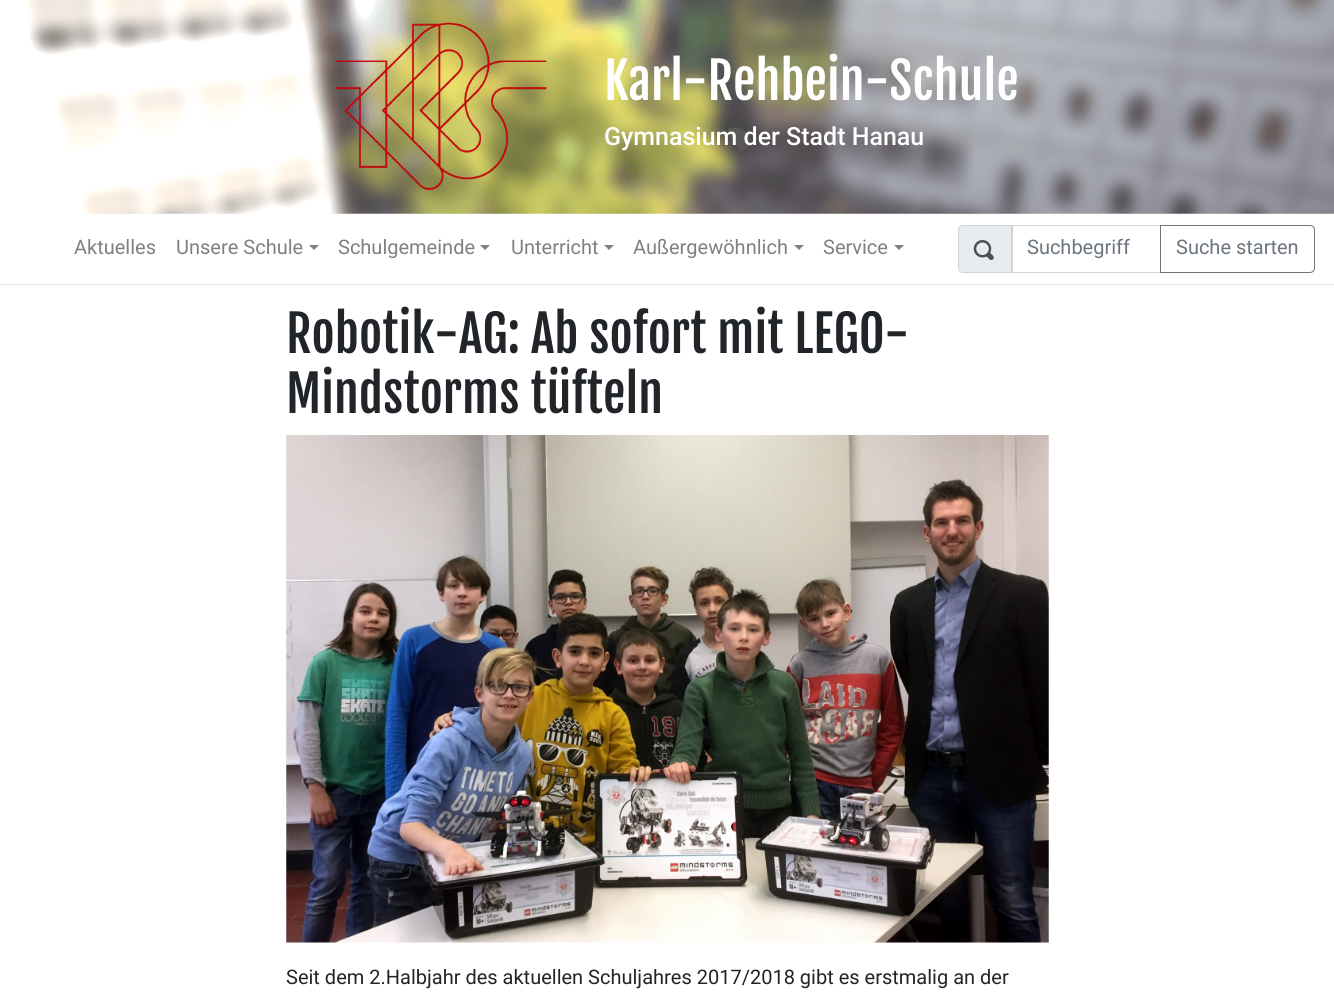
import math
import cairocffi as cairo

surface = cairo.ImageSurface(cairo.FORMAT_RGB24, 1334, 997)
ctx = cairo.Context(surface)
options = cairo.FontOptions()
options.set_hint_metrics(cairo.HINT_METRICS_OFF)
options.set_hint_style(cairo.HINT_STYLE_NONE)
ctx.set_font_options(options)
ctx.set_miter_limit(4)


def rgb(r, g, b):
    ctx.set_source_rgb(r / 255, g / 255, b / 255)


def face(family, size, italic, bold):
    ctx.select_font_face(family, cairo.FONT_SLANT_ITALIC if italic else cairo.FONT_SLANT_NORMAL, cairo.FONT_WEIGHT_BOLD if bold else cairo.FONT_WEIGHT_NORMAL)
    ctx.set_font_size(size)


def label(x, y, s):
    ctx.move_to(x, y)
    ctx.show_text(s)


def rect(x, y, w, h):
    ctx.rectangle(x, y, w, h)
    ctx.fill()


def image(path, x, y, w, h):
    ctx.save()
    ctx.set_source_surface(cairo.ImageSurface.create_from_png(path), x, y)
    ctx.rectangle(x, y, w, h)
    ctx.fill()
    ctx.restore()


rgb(255, 255, 255)
ctx.paint()
image('image0.png', 26, 0, 1308, 214)
image('image1.png', 336, 22, 211, 169)
face('Fjalla One', 50, 0, 0)
rgb(255, 255, 255)
label(604, 100, 'Karl-Rehbein-Schule')
face('Roboto Medium', 25, 0, 0)
label(604, 145, 'Gymnasium der Stadt Hanau')
rgb(222, 226, 230)
rect(0, 284, 1334, 1)
face('Roboto', 20, 0, 0)
rgb(128, 128, 128)
label(74, 254, 'Aktuelles')
label(176, 254, 'Unsere Schule')
ctx.new_path()
ctx.move_to(309, 245)
ctx.line_to(319, 245)
ctx.line_to(314, 250)
ctx.close_path()
ctx.fill()
label(338, 254, 'Schulgemeinde')
ctx.new_path()
ctx.move_to(480, 245)
ctx.line_to(490, 245)
ctx.line_to(485, 250)
ctx.close_path()
ctx.fill()
label(511, 254, 'Unterricht')
ctx.new_path()
ctx.move_to(604, 245)
ctx.line_to(614, 245)
ctx.line_to(609, 250)
ctx.close_path()
ctx.fill()
label(633, 254, 'Außergewöhnlich')
ctx.new_path()
ctx.move_to(794, 245)
ctx.line_to(804, 245)
ctx.line_to(799, 250)
ctx.close_path()
ctx.fill()
label(823, 254, 'Service')
ctx.new_path()
ctx.move_to(894, 245)
ctx.line_to(904, 245)
ctx.line_to(899, 250)
ctx.close_path()
ctx.fill()
rgb(233, 236, 239)
ctx.new_path()
ctx.move_to(963, 225.5)
ctx.line_to(1012.5, 225.5)
ctx.line_to(1012.5, 272.5)
ctx.line_to(963, 272.5)
ctx.curve_to(960.5, 272.5, 958.5, 270.5, 958.5, 268)
ctx.line_to(958.5, 230)
ctx.curve_to(958.5, 227.5, 960.5, 225.5, 963, 225.5)
ctx.close_path()
ctx.fill_preserve()
rgb(206, 212, 218)
ctx.set_line_width(1)
ctx.stroke()
image('image2.png', 973, 240, 21, 20)
ctx.rectangle(1011.5, 225.5, 149, 47)
ctx.stroke()
rgb(108, 117, 125)
label(1027, 254, 'Suchbegriff')
ctx.new_path()
ctx.move_to(1160.5, 225.5)
ctx.line_to(1310, 225.5)
ctx.curve_to(1312.5, 225.5, 1314.5, 227.5, 1314.5, 230)
ctx.line_to(1314.5, 268)
ctx.curve_to(1314.5, 270.5, 1312.5, 272.5, 1310, 272.5)
ctx.line_to(1160.5, 272.5)
ctx.close_path()
ctx.stroke()
label(1176, 254, 'Suche starten')
face('Fjalla One', 50, 0, 0)
rgb(33, 37, 41)
label(286, 353, 'Robotik-AG: Ab sofort mit LEGO-')
label(286, 413, 'Mindstorms tüfteln')
image('image3.png', 286, 435, 763, 508)
face('Roboto', 20, 0, 0)
label(286, 984, 'Seit dem 2.Halbjahr des aktuellen Schuljahres 2017/2018 gibt es erstmalig an der')
surface.write_to_png('render.png')
